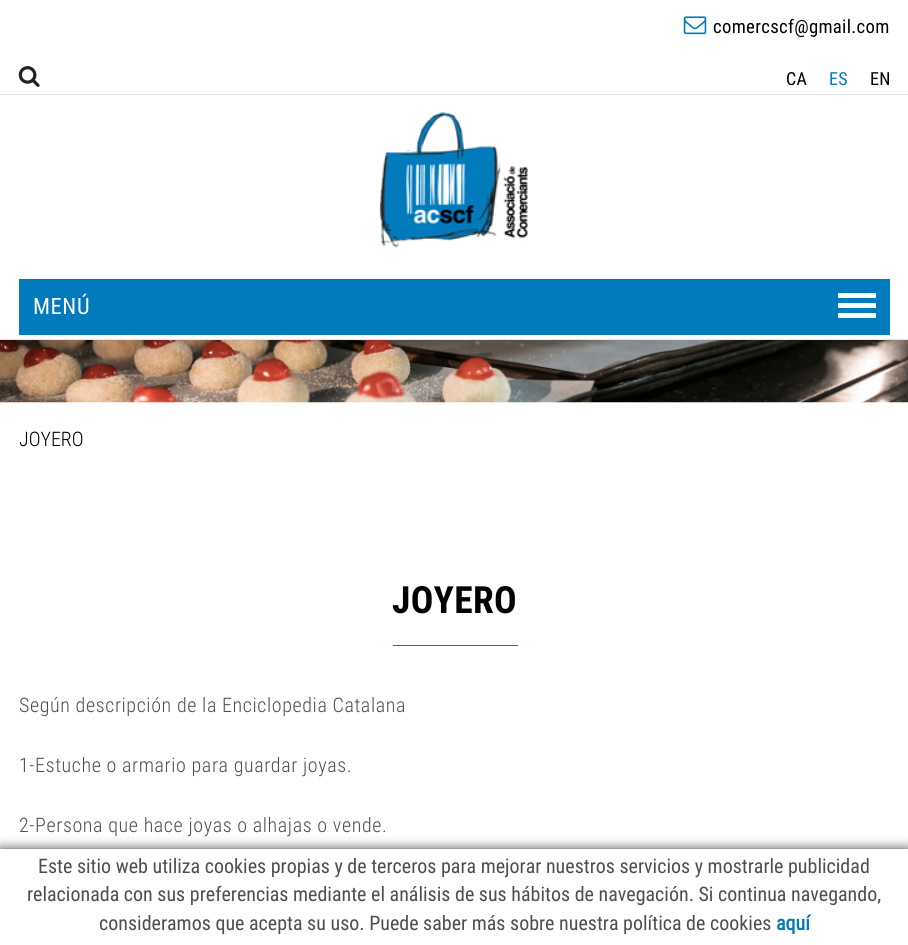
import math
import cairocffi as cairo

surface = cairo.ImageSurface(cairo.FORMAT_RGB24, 908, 945)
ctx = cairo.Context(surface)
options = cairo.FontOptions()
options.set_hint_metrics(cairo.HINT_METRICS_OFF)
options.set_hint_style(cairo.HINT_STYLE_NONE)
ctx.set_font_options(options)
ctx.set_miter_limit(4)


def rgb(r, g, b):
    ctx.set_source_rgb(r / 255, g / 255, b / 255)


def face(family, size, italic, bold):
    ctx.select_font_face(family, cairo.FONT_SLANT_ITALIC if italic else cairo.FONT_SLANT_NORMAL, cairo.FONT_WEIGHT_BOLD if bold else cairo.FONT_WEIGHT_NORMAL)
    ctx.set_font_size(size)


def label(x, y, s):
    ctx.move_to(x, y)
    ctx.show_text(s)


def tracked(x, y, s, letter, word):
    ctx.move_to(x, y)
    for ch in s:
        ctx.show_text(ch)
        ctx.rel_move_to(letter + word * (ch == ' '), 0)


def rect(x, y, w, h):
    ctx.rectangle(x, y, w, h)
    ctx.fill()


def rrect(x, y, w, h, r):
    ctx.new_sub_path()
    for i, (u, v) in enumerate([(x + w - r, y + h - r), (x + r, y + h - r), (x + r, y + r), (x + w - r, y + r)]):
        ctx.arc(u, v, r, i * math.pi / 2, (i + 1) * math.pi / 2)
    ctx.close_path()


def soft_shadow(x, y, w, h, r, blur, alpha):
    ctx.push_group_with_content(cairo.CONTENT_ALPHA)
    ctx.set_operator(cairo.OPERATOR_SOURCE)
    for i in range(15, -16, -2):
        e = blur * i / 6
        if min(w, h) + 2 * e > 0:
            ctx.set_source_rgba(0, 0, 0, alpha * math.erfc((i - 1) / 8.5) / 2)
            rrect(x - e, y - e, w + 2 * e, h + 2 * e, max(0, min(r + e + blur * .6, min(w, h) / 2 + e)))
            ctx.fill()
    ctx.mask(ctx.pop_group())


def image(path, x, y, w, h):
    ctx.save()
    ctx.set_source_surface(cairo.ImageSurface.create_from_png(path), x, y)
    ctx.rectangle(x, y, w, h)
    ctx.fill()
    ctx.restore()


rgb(255, 255, 255)
ctx.paint()
rgb(229, 229, 229)
rect(0, 94, 908, 1)
image('image0.png', 683, 16, 24, 19)
face('Roboto Condensed', 18.75, 0, 0)
rgb(0, 0, 0)
tracked(713, 33, 'comercscf@gmail.com', 0.3, 0)
image('image1.png', 18, 66, 22, 21)
face('Roboto Condensed', 18, 0, 0)
tracked(786, 85, 'CA', 0.3, 0)
rgb(1, 123, 188)
tracked(829, 85, 'ES', 0.3, 0)
rgb(0, 0, 0)
tracked(870, 85, 'EN', 0.3, 0)
rgb(229, 229, 229)
rect(0, 339, 908, 1)
image('image2.png', 379, 112, 149, 136)
rgb(1, 123, 188)
rect(19, 279, 871, 56)
face('Roboto Condensed', 22.5, 0, 0)
rgb(255, 255, 255)
tracked(33, 314, 'MENÚ', 0.6, 0)
rrect(838, 293, 38, 5, 1)
ctx.fill()
rrect(838, 303, 38, 5, 1)
ctx.fill()
rrect(838, 313, 38, 5, 1)
ctx.fill()
image('image3.png', 0, 340, 908, 63)
face('Roboto Condensed Light', 20, 0, 0)
rgb(0, 0, 0)
label(19, 446, 'JOYERO')
face('Roboto Condensed', 37.5, 0, 1)
tracked(392, 613, 'JOYERO', 0.3, 0)
rgb(1, 123, 188)
rect(393, 645, 125, 1)
face('Roboto Condensed Light', 20, 0, 0)
rgb(78, 78, 78)
tracked(19, 712, 'Según descripción de la Enciclopedia Catalana', 0.6, 0)
tracked(19, 772, '1-Estuche o armario para guardar joyas.', 0.6, 0)
tracked(19, 832, '2-Persona que hace joyas o alhajas o vende.', 0.6, 0)
rgb(68, 68, 68)
soft_shadow(0, 849, 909, 96, 0, 6, 1)
rgb(255, 255, 255)
rect(0, 849, 908, 96)
face('Roboto Condensed', 20, 0, 0)
rgb(78, 78, 78)
label(38, 873, 'Este sitio web utiliza cookies propias y de terceros para mejorar nuestros servicios y mostrarle publicidad')
label(27, 901, 'relacionada con sus preferencias mediante el análisis de sus hábitos de navegación. Si continua navegando,')
label(99, 930, 'consideramos que acepta su uso. Puede saber más sobre nuestra política de cookies')
face('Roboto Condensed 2', 20, 0, 1)
rgb(1, 123, 188)
label(776, 930, 'aquí')
surface.write_to_png('render.png')
